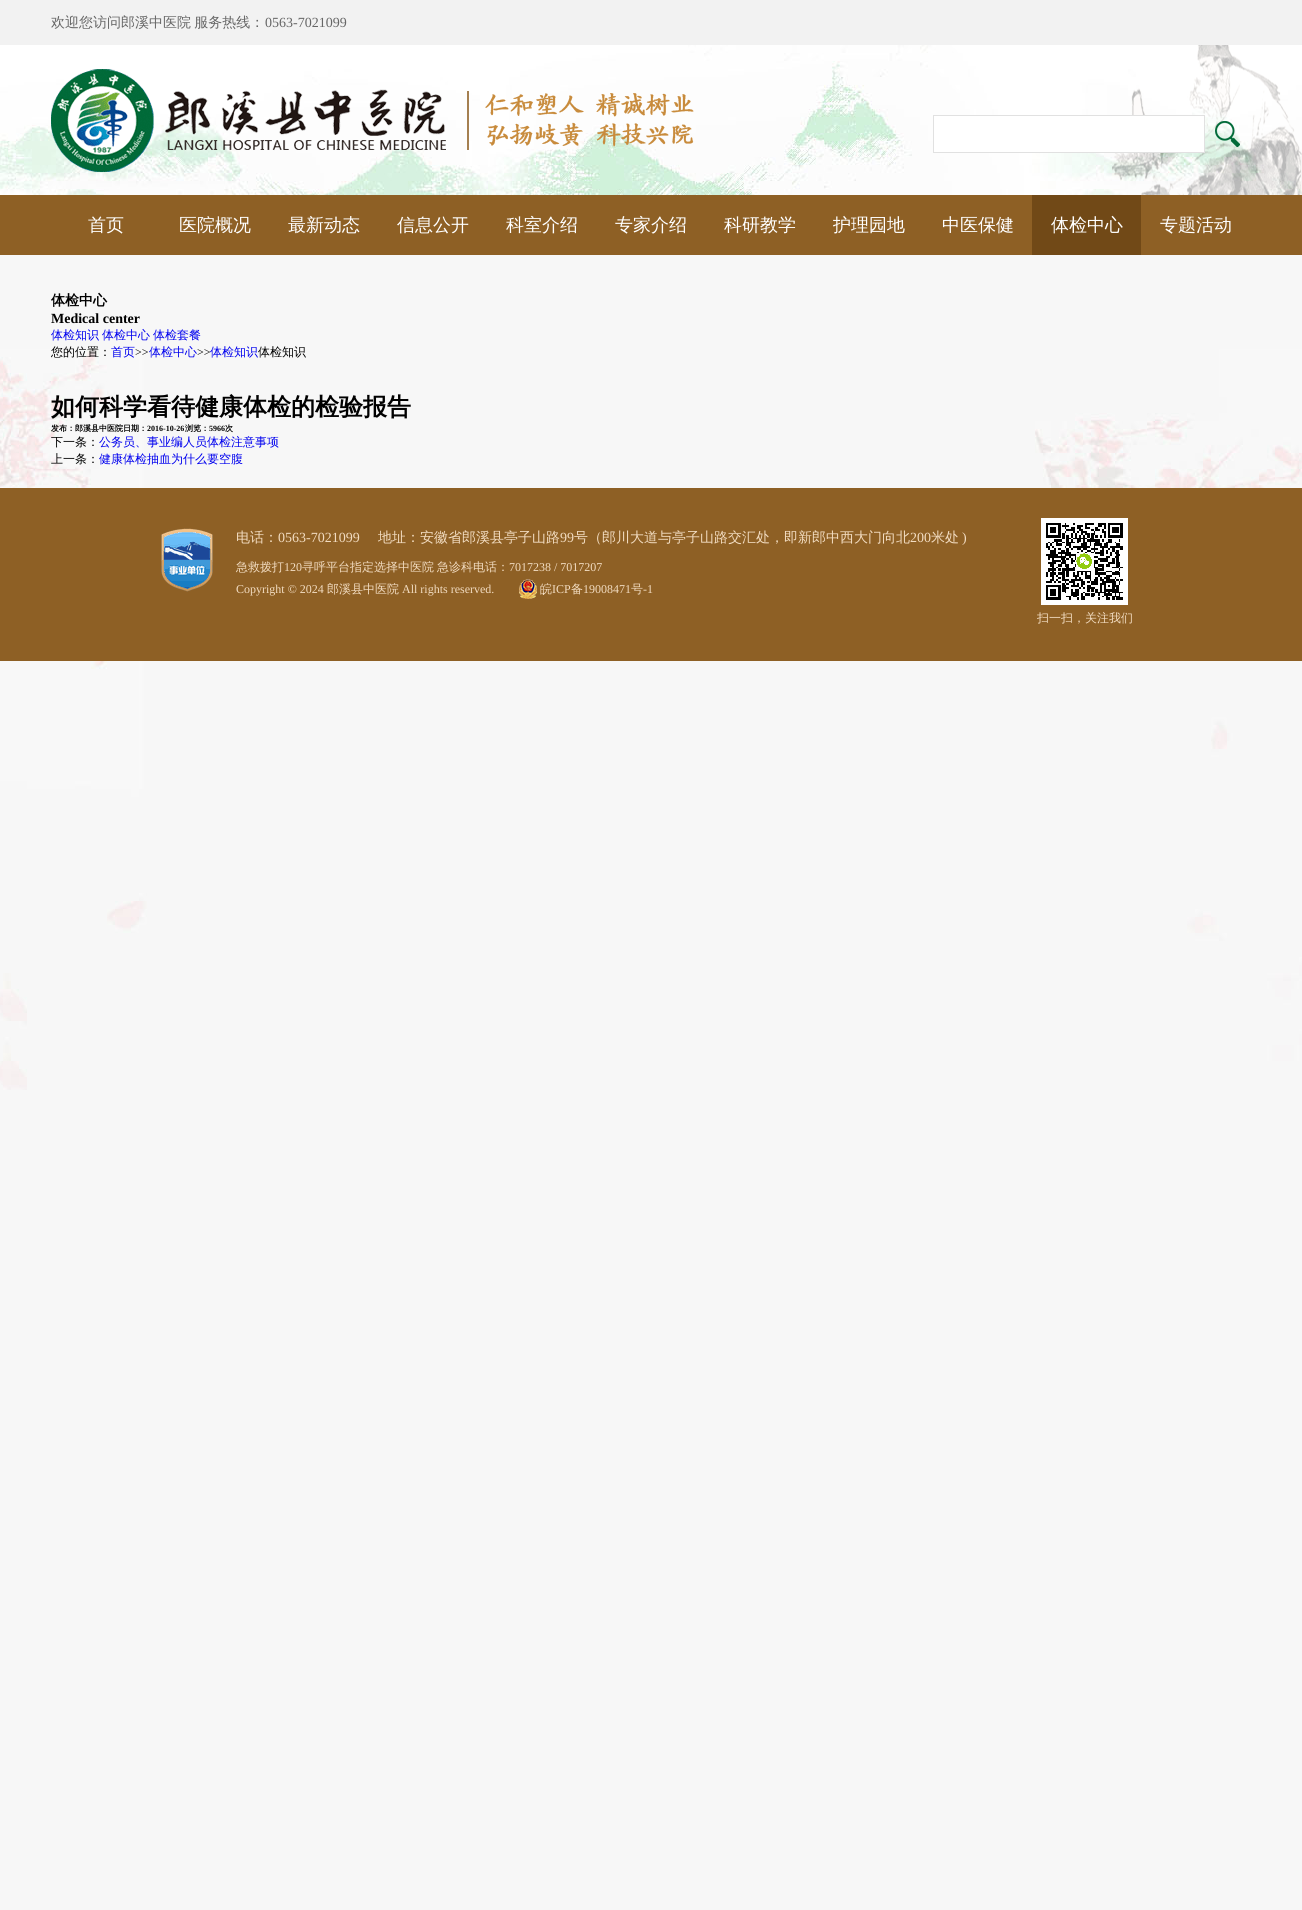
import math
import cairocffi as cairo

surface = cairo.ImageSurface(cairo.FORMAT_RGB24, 1302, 1910)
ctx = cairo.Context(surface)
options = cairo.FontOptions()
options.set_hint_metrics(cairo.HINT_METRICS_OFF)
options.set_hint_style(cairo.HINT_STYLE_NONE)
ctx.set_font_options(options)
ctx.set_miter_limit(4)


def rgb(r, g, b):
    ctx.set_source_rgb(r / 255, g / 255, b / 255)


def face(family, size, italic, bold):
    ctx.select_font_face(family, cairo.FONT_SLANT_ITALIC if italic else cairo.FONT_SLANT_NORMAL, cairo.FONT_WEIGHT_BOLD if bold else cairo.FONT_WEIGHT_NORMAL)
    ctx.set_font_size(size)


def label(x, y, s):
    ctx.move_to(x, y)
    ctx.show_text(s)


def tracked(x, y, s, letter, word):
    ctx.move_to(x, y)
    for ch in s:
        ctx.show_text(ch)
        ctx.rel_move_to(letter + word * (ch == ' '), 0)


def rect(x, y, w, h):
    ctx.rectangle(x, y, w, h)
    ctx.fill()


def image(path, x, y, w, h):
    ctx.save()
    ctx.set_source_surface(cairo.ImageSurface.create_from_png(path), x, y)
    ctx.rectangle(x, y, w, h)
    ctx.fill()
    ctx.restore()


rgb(247, 247, 247)
ctx.paint()
image('image0.png', 0, 349, 1302, 741)
rgb(242, 242, 242)
rect(0, 0, 1302, 45)
face('WenQuanYi Zen Hei Medium', 14, 0, 0)
rgb(102, 102, 102)
tracked(51, 27, '欢迎您访问郎溪中医院 服务热线：', 0, -1)
face('Liberation Serif', 14, 0, 0)
label(265, 27, '0563-7021099')
image('image1.png', 0, 45, 1302, 150)
image('image2.png', 1112, 45, 190, 150)
image('image3.png', 51, 69, 643, 103)
rgb(255, 255, 255)
ctx.rectangle(933.5, 115.5, 271, 37)
ctx.fill_preserve()
rgb(225, 225, 225)
ctx.set_line_width(1)
ctx.stroke()
image('image4.png', 1215, 121, 25, 26)
rgb(142, 96, 37)
rect(0, 195, 1302, 60)
face('WenQuanYi Zen Hei Medium', 18, 0, 0)
rgb(255, 255, 255)
label(88, 231, '首页')
label(179, 231, '医院概况')
label(288, 231, '最新动态')
label(397, 231, '信息公开')
label(506, 231, '科室介绍')
label(615, 231, '专家介绍')
label(724, 231, '科研教学')
label(833, 231, '护理园地')
label(942, 231, '中医保健')
rgb(113, 73, 23)
rect(1032, 195, 109, 60)
rgb(255, 255, 255)
label(1051, 231, '体检中心')
label(1160, 231, '专题活动')
face('WenQuanYi Zen Hei', 14, 0, 1)
rgb(0, 0, 0)
label(51, 305, '体检中心')
face('Liberation Serif', 14, 0, 1)
label(51, 323, 'Medical center')
face('WenQuanYi Zen Hei Medium', 12, 0, 0)
rgb(0, 0, 238)
label(51, 339, '体检知识')
label(102, 339, '体检中心')
label(153, 339, '体检套餐')
rgb(0, 0, 0)
label(51, 356, '您的位置：')
rgb(0, 0, 238)
label(111, 356, '首页')
face('Liberation Serif', 12, 0, 0)
rgb(0, 0, 0)
label(135, 356, '>>')
face('WenQuanYi Zen Hei Medium', 12, 0, 0)
rgb(0, 0, 238)
label(149, 356, '体检中心')
face('Liberation Serif', 12, 0, 0)
rgb(0, 0, 0)
label(197, 356, '>>')
face('WenQuanYi Zen Hei Medium', 12, 0, 0)
rgb(0, 0, 238)
label(210, 356, '体检知识')
rgb(0, 0, 0)
label(258, 356, '体检知识')
face('WenQuanYi Zen Hei', 24, 0, 1)
label(51, 415, '如何科学看待健康体检的检验报告')
face('WenQuanYi Zen Hei', 8, 0, 1)
label(51, 431, '发布：郎溪县中医院日期：')
face('Liberation Serif', 8, 0, 1)
label(147, 431, '2016-10-26')
face('WenQuanYi Zen Hei', 8, 0, 1)
label(185, 431, '浏览：')
face('Liberation Serif', 8, 0, 1)
label(209, 431, '5966')
face('WenQuanYi Zen Hei', 8, 0, 1)
label(225, 431, '次')
face('WenQuanYi Zen Hei Medium', 12, 0, 0)
label(51, 446, '下一条：')
rgb(0, 0, 238)
label(99, 446, '公务员、事业编人员体检注意事项')
rgb(0, 0, 0)
label(51, 463, '上一条：')
rgb(0, 0, 238)
label(99, 463, '健康体检抽血为什么要空腹')
rgb(142, 96, 37)
rect(0, 488, 1302, 173)
image('image5.png', 161, 528, 52, 64)
face('WenQuanYi Zen Hei Medium', 14, 0, 0)
rgb(242, 220, 193)
label(236, 542, '电话：')
face('Liberation Serif', 14, 0, 0)
label(278, 542, '0563-7021099')
face('WenQuanYi Zen Hei Medium', 14, 0, 0)
label(378, 542, '地址：安徽省郎溪县亭子山路')
face('Liberation Serif', 14, 0, 0)
label(560, 542, '99')
face('WenQuanYi Zen Hei Medium', 14, 0, 0)
label(574, 542, '号（郎川大道与亭子山路交汇处，即新郎中西大门向北')
face('Liberation Serif', 14, 0, 0)
label(910, 542, '200')
face('WenQuanYi Zen Hei Medium', 14, 0, 0)
label(931, 542, '米处')
face('Liberation Serif', 14, 0, 0)
label(962, 542, ')')
face('WenQuanYi Zen Hei Medium', 12, 0, 0)
label(236, 571, '急救拨打')
face('Liberation Serif', 12, 0, 0)
label(284, 571, '120')
face('WenQuanYi Zen Hei Medium', 12, 0, 0)
label(302, 571, '寻呼平台指定选择中医院')
label(437, 571, '急诊科电话：')
face('Liberation Serif', 12, 0, 0)
label(509, 571, '7017238 / 7017207')
label(236, 593, 'Copyright © 2024')
face('WenQuanYi Zen Hei Medium', 12, 0, 0)
label(327, 593, '郎溪县中医院')
face('Liberation Serif', 12, 0, 0)
label(402, 593, 'All rights reserved.')
image('image6.png', 519, 579, 18, 20)
face('WenQuanYi Zen Hei Medium', 12, 0, 0)
label(540, 593, '皖')
face('Liberation Serif', 12, 0, 0)
label(552, 593, 'ICP')
face('WenQuanYi Zen Hei Medium', 12, 0, 0)
label(571, 593, '备')
face('Liberation Serif', 12, 0, 0)
label(583, 593, '19008471')
face('WenQuanYi Zen Hei Medium', 12, 0, 0)
label(631, 593, '号')
face('Liberation Serif', 12, 0, 0)
label(643, 593, '-1')
ctx.rectangle(1043.5, 520.5, 82, 82)
rgb(255, 255, 255)
ctx.set_line_width(5)
ctx.stroke()
image('image7.png', 1046, 523, 77, 77)
face('WenQuanYi Zen Hei Medium', 12, 0, 0)
rgb(242, 220, 193)
label(1037, 622, '扫一扫，关注我们')
surface.write_to_png('render.png')
